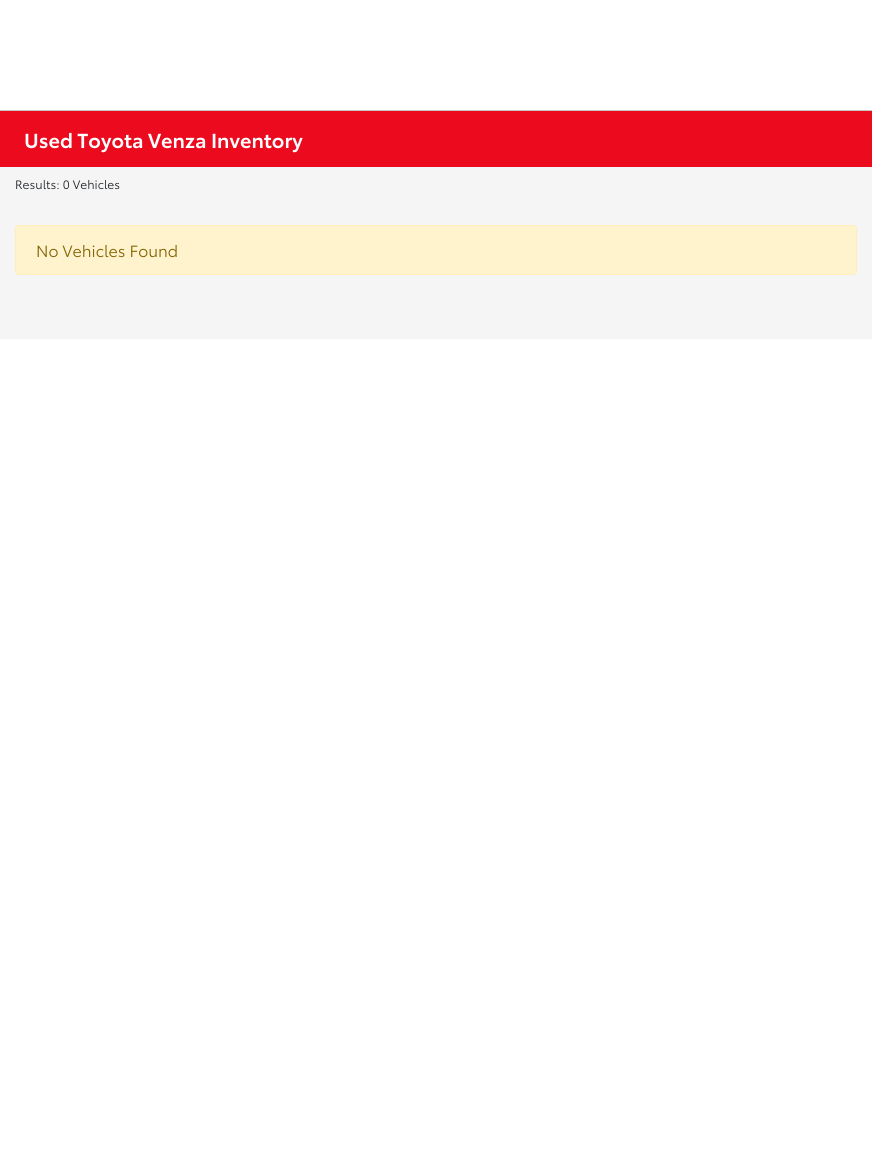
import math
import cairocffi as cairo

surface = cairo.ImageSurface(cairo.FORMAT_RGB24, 872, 1149)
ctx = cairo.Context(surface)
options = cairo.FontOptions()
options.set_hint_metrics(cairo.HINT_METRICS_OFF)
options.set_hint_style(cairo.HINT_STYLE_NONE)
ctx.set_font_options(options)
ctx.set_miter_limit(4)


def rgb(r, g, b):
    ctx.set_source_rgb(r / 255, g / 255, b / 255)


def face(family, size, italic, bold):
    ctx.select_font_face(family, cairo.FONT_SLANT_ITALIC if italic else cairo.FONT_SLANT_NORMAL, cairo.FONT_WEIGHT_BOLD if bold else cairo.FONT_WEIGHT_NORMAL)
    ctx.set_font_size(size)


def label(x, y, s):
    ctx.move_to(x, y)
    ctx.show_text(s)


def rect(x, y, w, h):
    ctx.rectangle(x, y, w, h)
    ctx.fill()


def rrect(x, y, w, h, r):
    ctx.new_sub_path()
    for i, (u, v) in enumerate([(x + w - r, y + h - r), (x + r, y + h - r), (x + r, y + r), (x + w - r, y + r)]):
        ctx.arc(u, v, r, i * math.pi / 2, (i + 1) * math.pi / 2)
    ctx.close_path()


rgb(255, 255, 255)
ctx.paint()
rgb(245, 245, 245)
rect(0, 167, 872, 172)
rgb(235, 10, 30)
rect(0, 111, 872, 56)
rgb(198, 198, 198)
rect(0, 110, 872, 1)
face('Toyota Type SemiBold', 20, 0, 0)
rgb(255, 255, 255)
label(24, 148, 'Used Toyota Venza Inventory')
face('Toyota Type', 12, 0, 0)
rgb(33, 37, 41)
label(15, 189, 'Results: 0 Vehicles')
rgb(255, 243, 205)
rrect(15.5, 225.5, 841, 49, 3.5)
ctx.fill_preserve()
rgb(255, 238, 186)
ctx.set_line_width(1)
ctx.stroke()
face('Toyota Type', 16, 0, 0)
rgb(133, 100, 4)
label(36, 257, 'No Vehicles Found')
surface.write_to_png('render.png')
